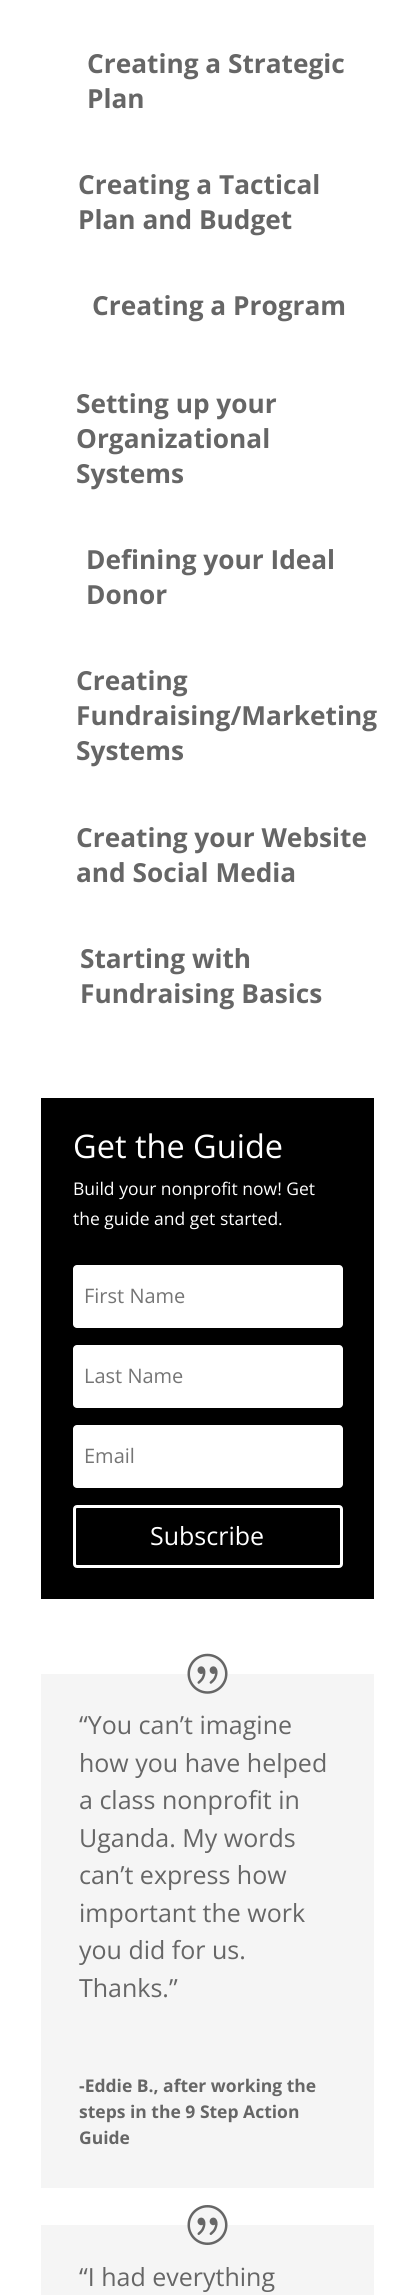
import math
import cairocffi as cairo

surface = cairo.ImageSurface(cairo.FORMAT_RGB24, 415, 2295)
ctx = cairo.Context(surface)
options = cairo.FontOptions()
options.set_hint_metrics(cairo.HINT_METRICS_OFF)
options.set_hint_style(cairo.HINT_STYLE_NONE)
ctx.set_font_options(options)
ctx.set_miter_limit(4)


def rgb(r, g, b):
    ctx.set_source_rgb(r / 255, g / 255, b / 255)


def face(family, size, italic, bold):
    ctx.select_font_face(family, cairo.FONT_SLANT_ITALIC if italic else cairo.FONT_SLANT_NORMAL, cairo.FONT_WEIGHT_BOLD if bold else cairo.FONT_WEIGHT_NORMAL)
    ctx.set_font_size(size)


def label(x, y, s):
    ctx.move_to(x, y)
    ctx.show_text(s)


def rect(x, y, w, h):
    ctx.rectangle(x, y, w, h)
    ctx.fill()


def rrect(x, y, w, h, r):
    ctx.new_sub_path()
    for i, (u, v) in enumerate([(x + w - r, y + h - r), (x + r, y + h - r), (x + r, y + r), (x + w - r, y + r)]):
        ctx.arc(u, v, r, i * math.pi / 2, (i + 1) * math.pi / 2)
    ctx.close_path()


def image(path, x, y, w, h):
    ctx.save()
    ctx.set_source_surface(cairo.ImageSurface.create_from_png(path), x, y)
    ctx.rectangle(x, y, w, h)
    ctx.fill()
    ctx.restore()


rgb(255, 255, 255)
ctx.paint()
face('Open Sans', 26.25, 0, 1)
rgb(102, 102, 102)
label(87, 73, 'Creating a Strategic')
label(87, 108, 'Plan')
label(78, 194, 'Creating a Tactical')
label(78, 229, 'Plan and Budget')
label(92, 315, 'Creating a Program')
label(76, 413, 'Setting up your')
label(76, 448, 'Organizational')
label(76, 483, 'Systems')
label(86, 569, 'Defining your Ideal')
label(86, 604, 'Donor')
label(76, 690, 'Creating')
label(76, 725, 'Fundraising/Marketing')
label(76, 760, 'Systems')
label(76, 847, 'Creating your Website')
label(76, 882, 'and Social Media')
label(80, 968, 'Starting with')
label(80, 1003, 'Fundraising Basics')
rgb(0, 0, 0)
rect(41, 1098, 333, 501)
face('Open Sans', 32.5, 0, 0)
rgb(255, 255, 255)
label(73, 1158, 'Get the Guide')
face('Open Sans', 17.5, 0, 0)
label(73, 1195, 'Build your nonprofit now! Get')
label(73, 1225, 'the guide and get started.')
rrect(73, 1265, 270, 63, 4)
ctx.fill()
face('Open Sans', 20, 0, 0)
rgb(117, 117, 117)
label(84, 1303, 'First Name')
rgb(255, 255, 255)
rrect(73, 1345, 270, 63, 4)
ctx.fill()
rgb(117, 117, 117)
label(84, 1383, 'Last Name')
rgb(255, 255, 255)
rrect(73, 1425, 270, 63, 4)
ctx.fill()
rgb(117, 117, 117)
label(84, 1463, 'Email')
rrect(74.5, 1506.5, 267, 60, 2.5)
rgb(255, 255, 255)
ctx.set_line_width(3)
ctx.stroke()
face('Open Sans', 25, 0, 0)
label(150, 1545, 'Subscribe')
rgb(245, 245, 245)
rect(41, 1674, 333, 514)
ctx.new_path()
ctx.arc(208, 1674, 20, 0, 2 * math.pi)
ctx.fill()
image('image0.png', 187, 1653, 41, 41)
rgb(102, 102, 102)
label(79, 1734, '“You can’t imagine')
label(79, 1772, 'how you have helped')
label(79, 1809, 'a class nonprofit in')
label(79, 1847, 'Uganda. My words')
label(79, 1884, 'can’t express how')
label(79, 1922, 'important the work')
label(79, 1959, 'you did for us.')
label(79, 1997, 'Thanks.”')
face('Open Sans', 17.5, 0, 1)
label(79, 2092, '-Eddie B., after working the')
label(79, 2118, 'steps in the 9 Step Action')
label(79, 2144, 'Guide')
rgb(245, 245, 245)
rect(41, 2225, 333, 70)
ctx.new_path()
ctx.arc(208, 2225, 20, 0, 2 * math.pi)
ctx.fill()
image('image1.png', 187, 2205, 41, 40)
face('Open Sans', 25, 0, 0)
rgb(102, 102, 102)
label(79, 2286, '“I had everything')
surface.write_to_png('render.png')
